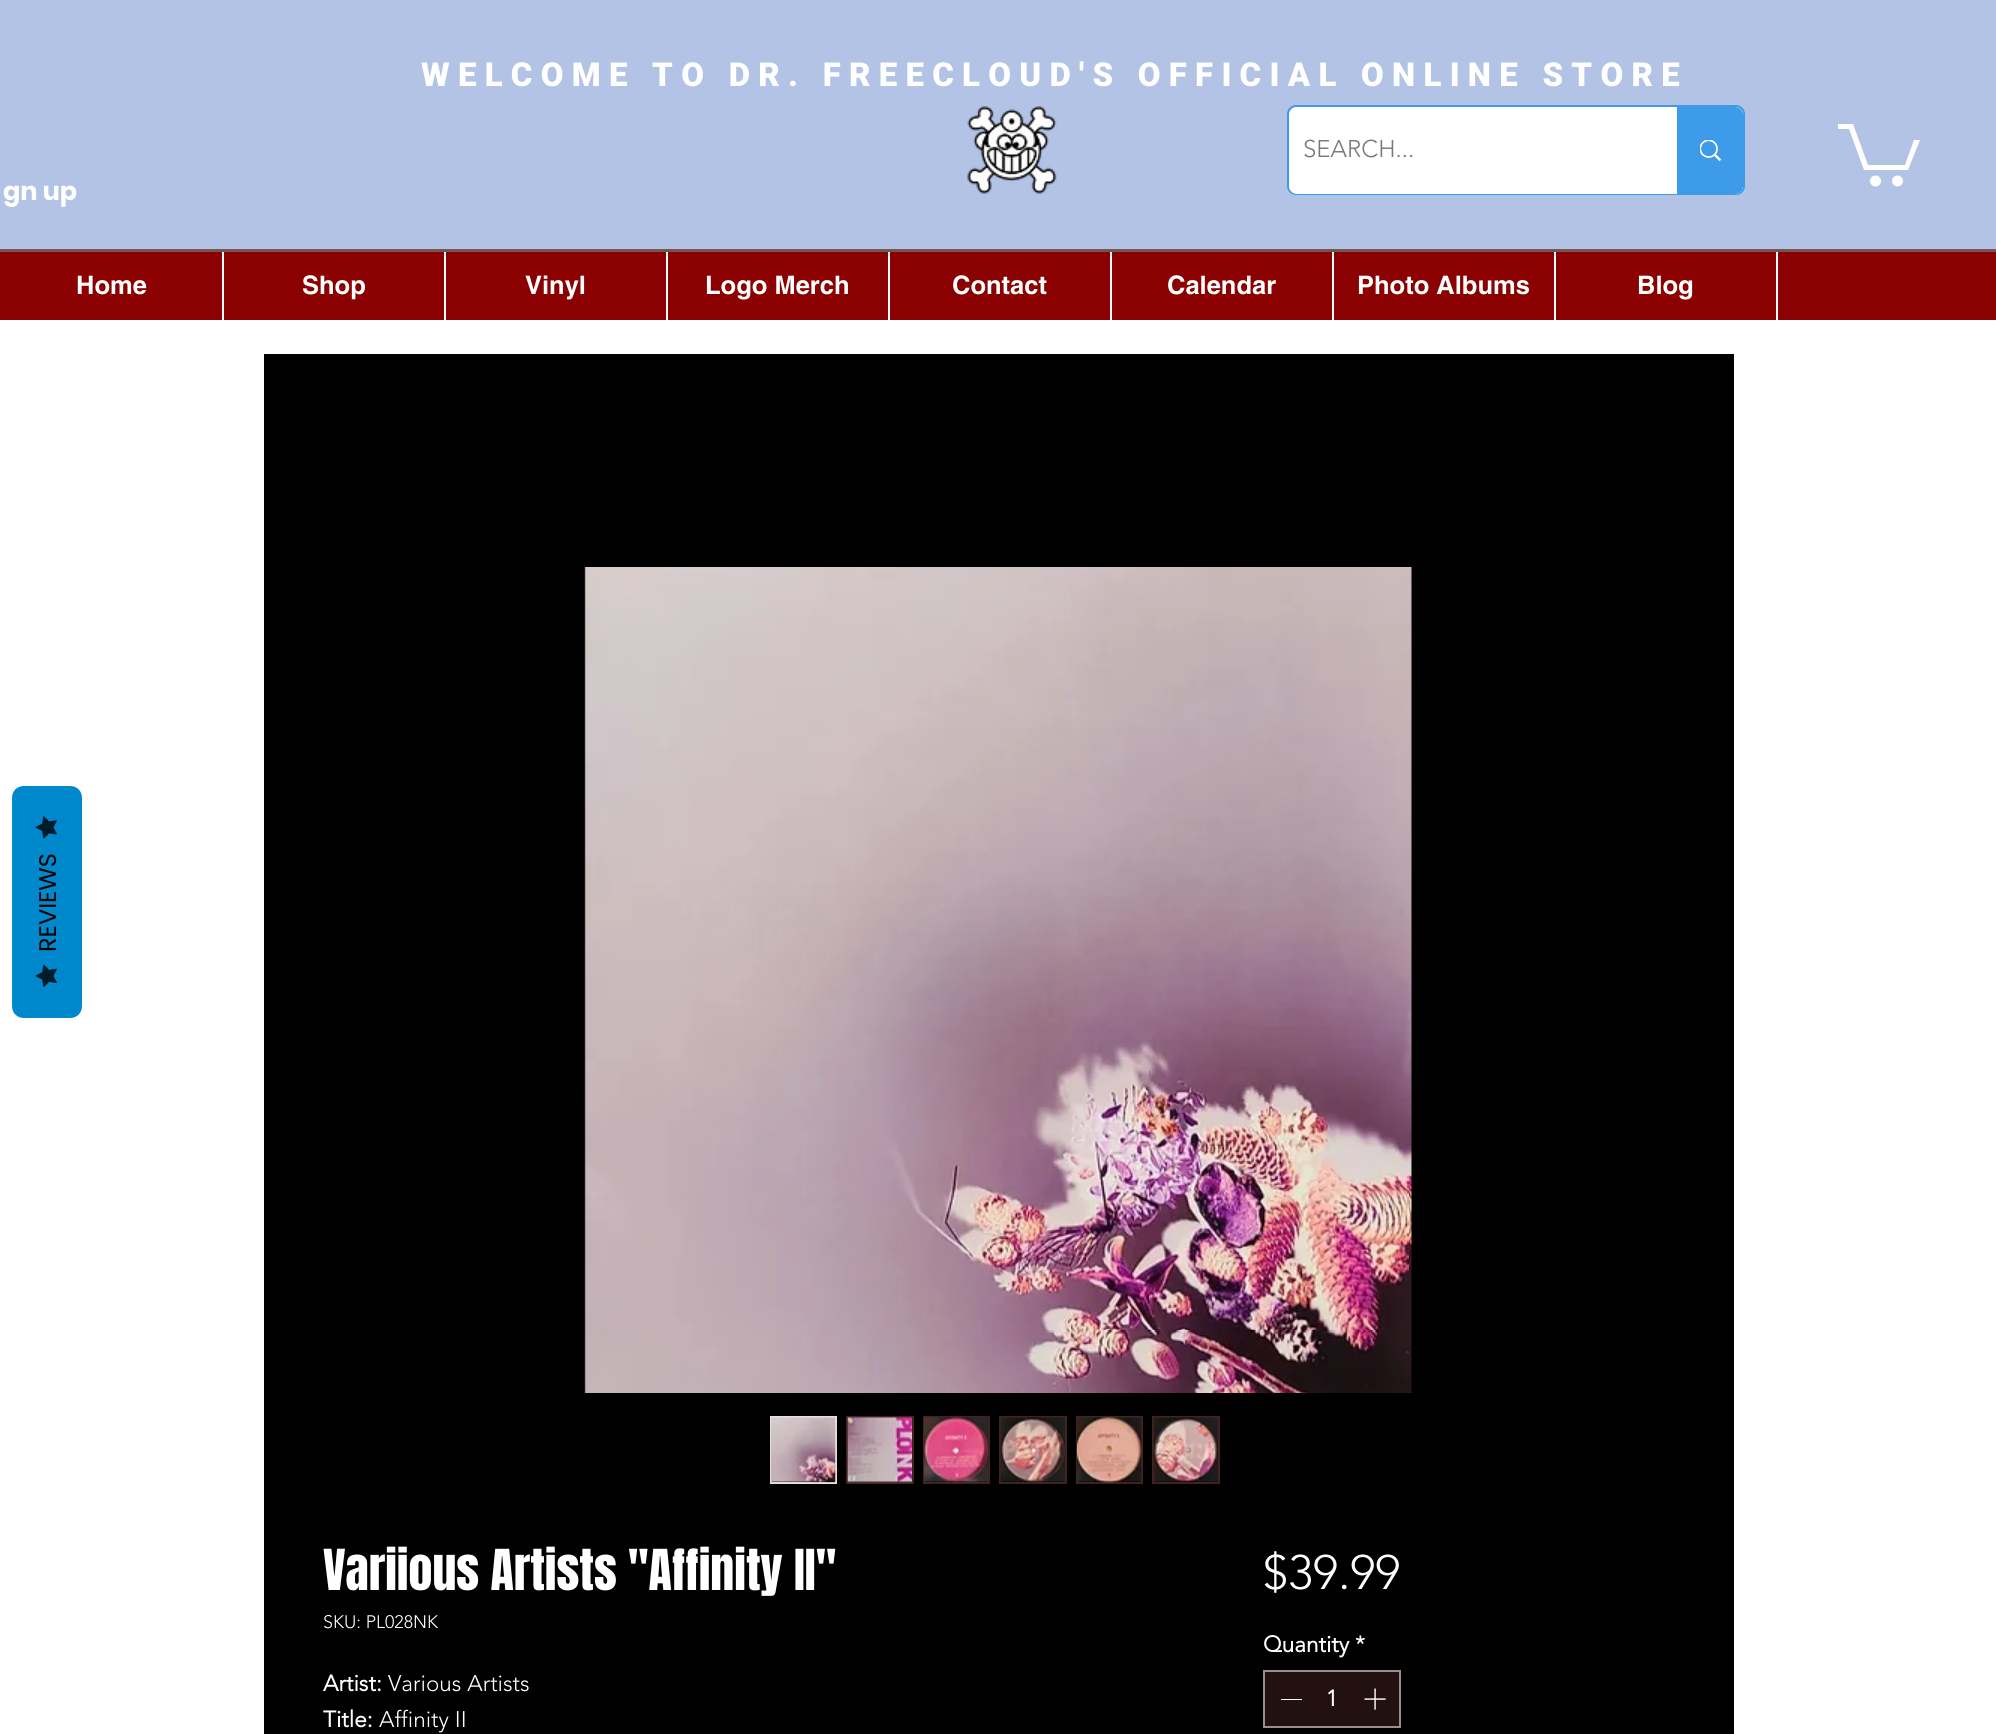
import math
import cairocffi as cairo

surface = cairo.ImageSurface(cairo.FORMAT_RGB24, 1996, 1734)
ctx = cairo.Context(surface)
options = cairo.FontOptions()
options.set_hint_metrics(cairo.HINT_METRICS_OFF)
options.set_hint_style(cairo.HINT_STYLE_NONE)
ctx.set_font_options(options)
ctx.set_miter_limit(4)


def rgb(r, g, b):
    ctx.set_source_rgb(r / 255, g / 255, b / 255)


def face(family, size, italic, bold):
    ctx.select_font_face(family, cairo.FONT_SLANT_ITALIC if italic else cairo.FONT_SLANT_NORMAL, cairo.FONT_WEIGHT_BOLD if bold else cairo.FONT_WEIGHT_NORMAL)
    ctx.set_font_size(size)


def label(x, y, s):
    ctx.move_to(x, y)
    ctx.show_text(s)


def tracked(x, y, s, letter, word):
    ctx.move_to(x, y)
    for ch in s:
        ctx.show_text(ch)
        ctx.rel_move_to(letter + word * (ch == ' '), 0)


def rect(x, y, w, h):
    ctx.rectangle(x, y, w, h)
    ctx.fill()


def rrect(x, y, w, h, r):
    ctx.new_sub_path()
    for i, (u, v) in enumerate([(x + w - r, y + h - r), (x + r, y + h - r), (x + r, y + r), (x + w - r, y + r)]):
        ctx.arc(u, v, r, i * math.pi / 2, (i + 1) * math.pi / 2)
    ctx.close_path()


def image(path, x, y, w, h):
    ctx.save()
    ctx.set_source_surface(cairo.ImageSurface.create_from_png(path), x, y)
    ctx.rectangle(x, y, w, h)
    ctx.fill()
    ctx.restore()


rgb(255, 255, 255)
ctx.paint()
rgb(178, 195, 230)
rect(0, 0, 1996, 249)
face('Roboto Black', 33, 0, 0)
rgb(255, 255, 255)
tracked(421, 86, 'WELCOME TO DR. FREECLOUD\'S OFFICIAL ONLINE STORE', 8.25, 0)
image('image0.png', 967, 106, 90, 88)
rrect(1288, 106, 456, 88, 8)
rgb(61, 155, 233)
ctx.stroke()
rgb(255, 255, 255)
rrect(1289, 107, 454, 87, 8)
ctx.fill()
face('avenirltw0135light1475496 Light', 24, 0, 0)
rgb(120, 120, 120)
label(1303, 157, 'SEARCH...')
rgb(61, 155, 233)
ctx.new_path()
ctx.move_to(1677, 107)
ctx.line_to(1735, 107)
ctx.curve_to(1739.5, 107, 1743, 110.5, 1743, 115)
ctx.line_to(1743, 186)
ctx.curve_to(1743, 190.5, 1739.5, 194, 1735, 194)
ctx.line_to(1677, 194)
ctx.close_path()
ctx.fill()
image('image1.png', 1700, 140, 21, 21)
face('Poppins', 25.5, 0, 1)
rgb(255, 255, 255)
label(3, 200, 'gn up')
rgb(116, 86, 86)
rect(0, 249, 1996, 3)
rgb(255, 255, 255)
ctx.new_path()
ctx.move_to(1920, 140)
ctx.line_to(1908, 170)
ctx.line_to(1864, 170)
ctx.line_to(1849, 129)
ctx.line_to(1838, 129)
ctx.line_to(1838, 124)
ctx.line_to(1853, 124)
ctx.line_to(1868, 165)
ctx.line_to(1905, 165)
ctx.line_to(1914, 140)
ctx.fill()
ctx.arc(1897.5, 181, 5.5, 0, 2 * math.pi)
ctx.fill()
ctx.arc(1875.5, 181, 5.5, 0, 2 * math.pi)
ctx.fill()
rgb(139, 0, 0)
rect(0, 252, 1996, 68)
face('helvetica', 25.5, 0, 1)
rgb(255, 255, 255)
label(76, 294, 'Home')
rect(222, 252, 2, 68)
label(302, 294, 'Shop')
rect(444, 252, 2, 68)
label(525, 294, 'Vinyl')
rect(666, 252, 2, 68)
label(705, 294, 'Logo Merch')
rect(888, 252, 2, 68)
label(952, 294, 'Contact')
rect(1110, 252, 2, 68)
label(1167, 294, 'Calendar')
rect(1332, 252, 2, 68)
label(1357, 294, 'Photo Albums')
rect(1554, 252, 2, 68)
label(1637, 294, 'Blog')
rect(1776, 252, 2, 68)
rgb(0, 0, 0)
rect(264, 354, 1470, 1380)
image('image2.png', 584, 567, 828, 826)
ctx.rectangle(771, 1417, 65, 66)
rgb(232, 223, 223)
ctx.stroke()
image('image3.png', 771, 1417, 65, 66)
ctx.rectangle(847, 1417, 66, 66)
rgb(69, 34, 34)
ctx.stroke()
image('image4.png', 847, 1417, 65, 66)
ctx.rectangle(924, 1417, 65, 66)
ctx.stroke()
image('image5.png', 924, 1417, 65, 66)
ctx.rectangle(1000, 1417, 66, 66)
ctx.stroke()
image('image6.png', 1000, 1417, 65, 66)
ctx.rectangle(1077, 1417, 65, 66)
ctx.stroke()
image('image7.png', 1077, 1417, 65, 66)
ctx.rectangle(1153, 1417, 66, 66)
ctx.stroke()
image('image8.png', 1153, 1417, 65, 66)
face('Anton', 48, 0, 0)
rgb(255, 255, 255)
label(323, 1590, 'Variious Artists "Affinity II"')
face('avenirltw0135light1475496 Light', 18, 0, 0)
label(323, 1628, 'SKU: PL028NK')
face('avenirltw0135light1475496', 22.5, 0, 1)
label(323, 1691, 'Artist:')
face('avenirltw0135light1475496 Light', 22.5, 0, 0)
label(388, 1691, 'Various Artists')
face('avenirltw0135light1475496', 22.5, 0, 1)
label(323, 1727, 'Title:')
face('avenirltw0135light1475496 Light', 22.5, 0, 0)
label(379, 1727, 'Affinity II')
face('avenirltw0135light1475496 Light', 48, 0, 0)
label(1263, 1589, '$39.99')
face('avenirltw0135light1475496', 22.5, 0, 1)
label(1263, 1652, 'Quantity *')
rgb(35, 17, 17)
ctx.rectangle(1264, 1671, 136, 56)
ctx.fill_preserve()
rgb(153, 141, 141)
ctx.stroke()
rgb(255, 255, 255)
rect(1281, 1699, 21, 1)
label(1326, 1706, '1')
image('image9.png', 1364, 1688, 22, 22)
rgb(0, 136, 204)
ctx.new_path()
ctx.move_to(12, 1006)
ctx.line_to(12, 798)
ctx.curve_to(12, 791, 17, 786, 24, 786)
ctx.line_to(70, 786)
ctx.curve_to(77, 786, 82, 791, 82, 798)
ctx.line_to(82, 1006)
ctx.curve_to(82, 1013, 77, 1018, 70, 1018)
ctx.line_to(24, 1018)
ctx.curve_to(17, 1018, 12, 1013, 12, 1006)
ctx.close_path()
ctx.fill()
image('image10.png', 35, 816, 22, 23)
face('Poppins', 24, 0, 0)
rgb(0, 0, 0)
ctx.save()
ctx.translate(56, 952)
ctx.rotate(-90 * math.pi / 180)
label(0, 0, 'REVIEWS')
ctx.restore()
image('image11.png', 35, 964, 22, 23)
surface.write_to_png('render.png')
